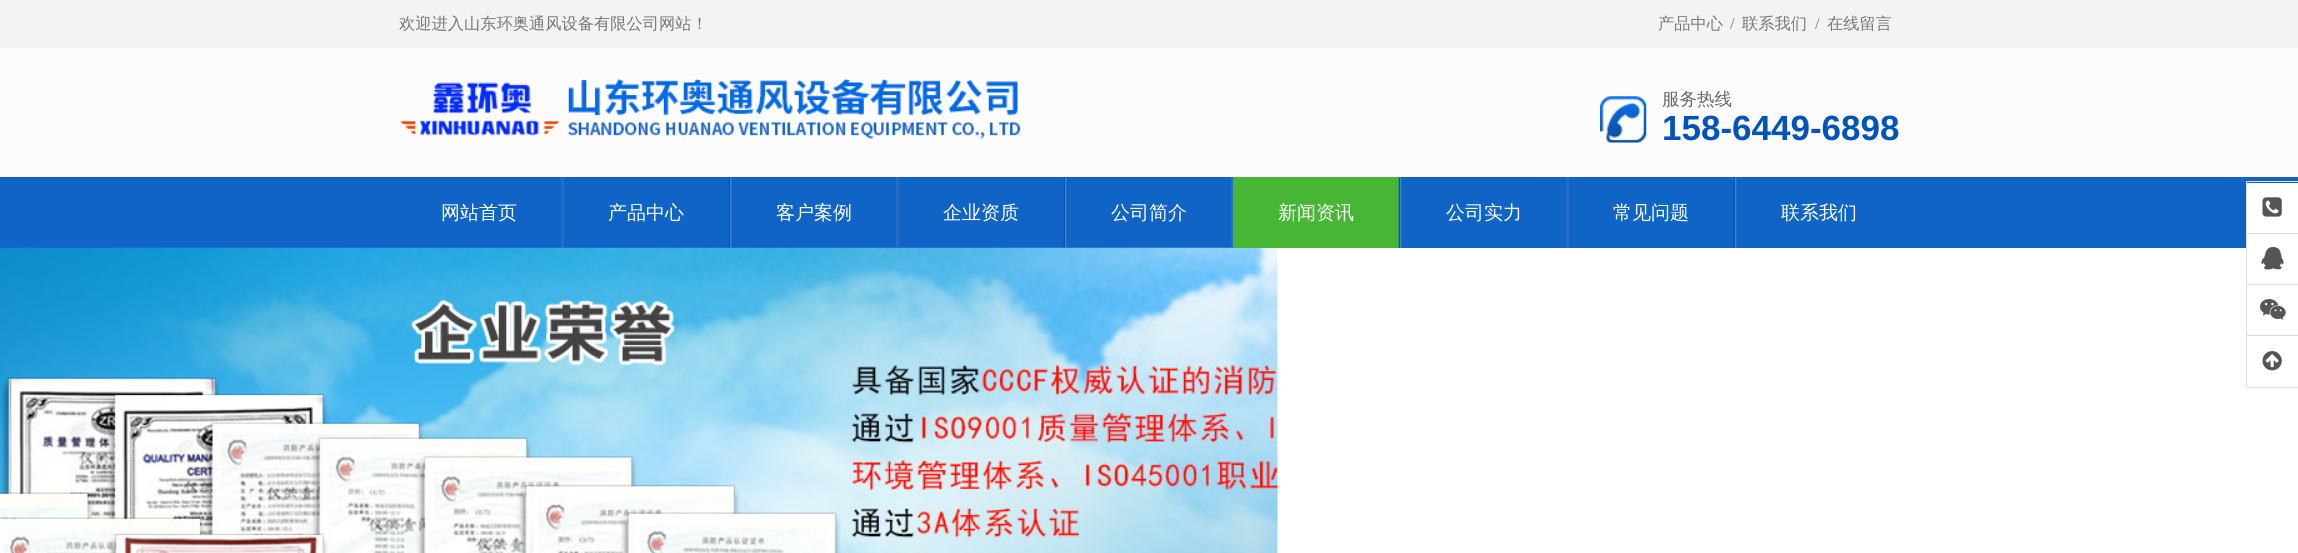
import math
import cairocffi as cairo

surface = cairo.ImageSurface(cairo.FORMAT_RGB24, 2298, 553)
ctx = cairo.Context(surface)
options = cairo.FontOptions()
options.set_hint_metrics(cairo.HINT_METRICS_OFF)
options.set_hint_style(cairo.HINT_STYLE_NONE)
ctx.set_font_options(options)
ctx.set_miter_limit(4)


def rgb(r, g, b):
    ctx.set_source_rgb(r / 255, g / 255, b / 255)


def face(family, size, italic, bold):
    ctx.select_font_face(family, cairo.FONT_SLANT_ITALIC if italic else cairo.FONT_SLANT_NORMAL, cairo.FONT_WEIGHT_BOLD if bold else cairo.FONT_WEIGHT_NORMAL)
    ctx.set_font_size(size)


def label(x, y, s):
    ctx.move_to(x, y)
    ctx.show_text(s)


def rect(x, y, w, h):
    ctx.rectangle(x, y, w, h)
    ctx.fill()


def image(path, x, y, w, h):
    ctx.save()
    ctx.set_source_surface(cairo.ImageSurface.create_from_png(path), x, y)
    ctx.rectangle(x, y, w, h)
    ctx.fill()
    ctx.restore()


rgb(255, 255, 255)
ctx.paint()
rgb(243, 243, 243)
rect(0, 0, 2298, 48)
face('WenQuanYi Zen Hei Medium', 16.25, 0, 0)
rgb(119, 119, 119)
label(399, 29, '欢迎进入山东环奥通风设备有限公司网站！')
label(1658, 29, '产品中心')
face('Liberation Serif', 16.25, 0, 0)
label(1730, 29, '/')
face('WenQuanYi Zen Hei Medium', 16.25, 0, 0)
label(1742, 29, '联系我们')
face('Liberation Serif', 16.25, 0, 0)
label(1815, 29, '/')
face('WenQuanYi Zen Hei Medium', 16.25, 0, 0)
label(1827, 29, '在线留言')
rgb(252, 252, 252)
rect(0, 48, 2298, 129)
image('image0.png', 400, 78, 621, 61)
image('image1.png', 1600, 96, 47, 47)
face('WenQuanYi Zen Hei Medium', 17.5, 0, 0)
rgb(102, 102, 102)
label(1662, 105, '服务热线')
face('Liberation Sans', 35, 0, 1)
rgb(3, 84, 186)
label(1662, 140, '158-6449-6898')
rgb(16, 100, 198)
rect(0, 177, 2298, 71)
face('WenQuanYi Zen Hei Medium', 19, 0, 0)
rgb(255, 255, 255)
label(441, 219, '网站首页')
image('image10.png', 0, 247, 1278, 306)
rgb(40, 109, 196)
rect(561, 177, 3, 71)
rgb(255, 255, 255)
label(608, 219, '产品中心')
image('image2.png', 728, 177, 4, 71)
label(776, 219, '客户案例')
rgb(40, 109, 196)
rect(896, 177, 3, 71)
rgb(255, 255, 255)
label(943, 219, '企业资质')
image('image3.png', 1063, 177, 4, 71)
label(1111, 219, '公司简介')
rgb(40, 109, 196)
rect(1231, 177, 2, 71)
rgb(71, 182, 52)
rect(1233, 177, 166, 71)
rgb(255, 255, 255)
label(1278, 219, '新闻资讯')
image('image4.png', 1398, 177, 4, 71)
label(1446, 219, '公司实力')
rgb(40, 109, 196)
rect(1566, 177, 3, 71)
rgb(255, 255, 255)
label(1613, 219, '常见问题')
image('image5.png', 1733, 177, 4, 71)
label(1781, 219, '联系我们')
rect(2247, 183, 51, 65)
ctx.rectangle(2246.5, 181.5, 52, 52)
rgb(221, 221, 221)
ctx.set_line_width(1)
ctx.stroke()
image('image6.png', 2262, 197, 20, 20)
ctx.rectangle(2246.5, 233.5, 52, 51)
ctx.stroke()
image('image7.png', 2261, 247, 23, 23)
ctx.rectangle(2246.5, 284.5, 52, 51)
ctx.stroke()
image('image8.png', 2260, 299, 26, 21)
ctx.rectangle(2246.5, 335.5, 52, 52)
ctx.stroke()
image('image9.png', 2262, 351, 20, 20)
surface.write_to_png('render.png')
